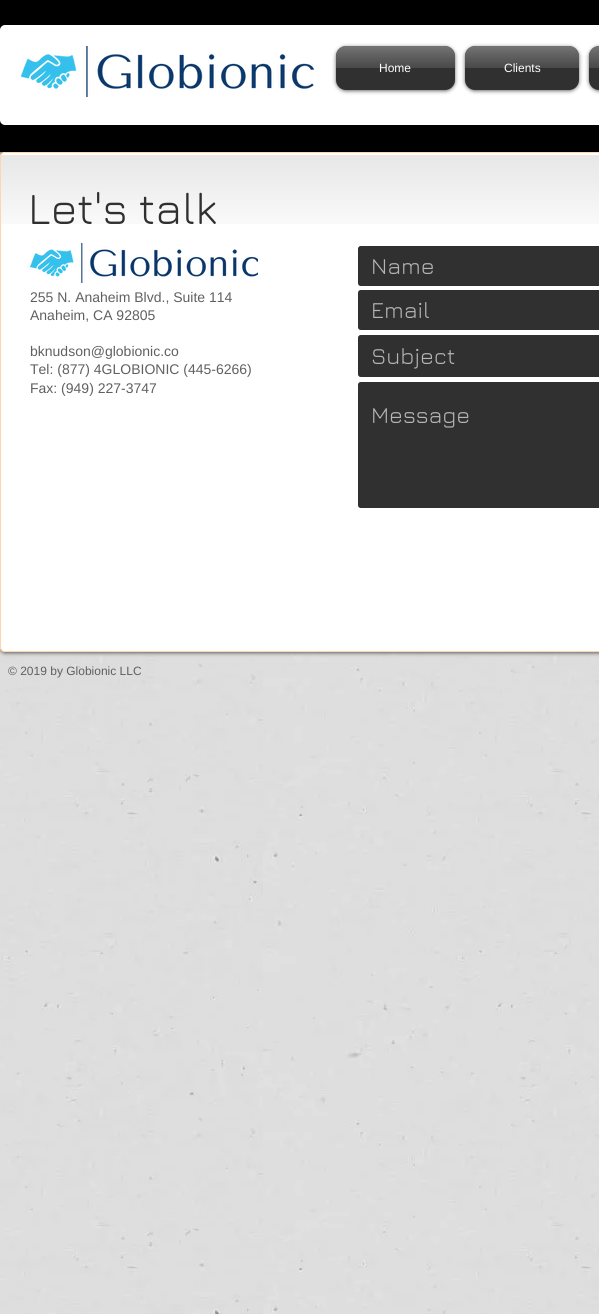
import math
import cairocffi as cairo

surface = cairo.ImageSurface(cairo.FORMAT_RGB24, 599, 1314)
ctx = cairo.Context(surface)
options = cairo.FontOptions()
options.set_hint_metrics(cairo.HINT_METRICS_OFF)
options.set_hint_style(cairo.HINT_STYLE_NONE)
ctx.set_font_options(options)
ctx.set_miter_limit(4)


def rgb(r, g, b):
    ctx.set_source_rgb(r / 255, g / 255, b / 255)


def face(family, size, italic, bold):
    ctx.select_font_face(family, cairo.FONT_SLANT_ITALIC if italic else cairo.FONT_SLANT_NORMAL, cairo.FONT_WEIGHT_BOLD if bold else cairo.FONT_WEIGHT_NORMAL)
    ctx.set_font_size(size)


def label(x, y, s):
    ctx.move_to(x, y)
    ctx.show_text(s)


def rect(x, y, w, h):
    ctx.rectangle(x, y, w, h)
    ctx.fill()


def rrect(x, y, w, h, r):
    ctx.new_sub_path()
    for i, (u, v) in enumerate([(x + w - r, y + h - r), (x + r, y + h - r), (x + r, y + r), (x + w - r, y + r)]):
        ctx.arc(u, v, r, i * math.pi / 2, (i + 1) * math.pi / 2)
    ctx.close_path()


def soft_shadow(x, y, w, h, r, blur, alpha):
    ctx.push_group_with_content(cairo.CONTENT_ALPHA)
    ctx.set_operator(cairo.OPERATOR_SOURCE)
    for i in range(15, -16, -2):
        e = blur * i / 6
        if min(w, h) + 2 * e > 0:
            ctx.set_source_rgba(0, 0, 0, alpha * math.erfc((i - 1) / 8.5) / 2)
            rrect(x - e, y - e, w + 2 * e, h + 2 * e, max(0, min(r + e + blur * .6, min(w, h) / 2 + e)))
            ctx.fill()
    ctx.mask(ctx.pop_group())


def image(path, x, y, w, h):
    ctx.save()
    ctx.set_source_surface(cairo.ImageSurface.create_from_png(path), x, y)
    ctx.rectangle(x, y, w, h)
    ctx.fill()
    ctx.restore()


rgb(255, 255, 255)
ctx.paint()
image('image6.png', 0, 152, 599, 1162)
rgb(0, 0, 0)
soft_shadow(0, 0, 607, 152, 0, 2.5, 0.7)
rgb(0, 0, 0)
rect(0, 0, 599, 152)
rgb(255, 255, 255)
rrect(1, 26, 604, 98, 4)
ctx.fill_preserve()
ctx.stroke()
image('image0.png', 21, 46, 293, 51)
rgb(0, 0, 0)
soft_shadow(336, 47, 119, 44, 10, 2, 0.6)
rgb(48, 48, 48)
rrect(336, 46, 119, 44, 10)
ctx.fill()
image('image1.png', 336, 46, 119, 22)
face('Liberation Sans', 12, 0, 0)
rgb(255, 255, 255)
label(379, 72, 'Home')
rgb(0, 0, 0)
soft_shadow(465, 47, 114, 44, 10, 2, 0.6)
rgb(48, 48, 48)
rrect(465, 46, 114, 44, 10)
ctx.fill()
image('image2.png', 465, 46, 114, 22)
rgb(255, 255, 255)
label(504, 72, 'Clients')
rgb(0, 0, 0)
soft_shadow(589, 47, 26, 44, 10, 2, 0.6)
rgb(48, 48, 48)
rrect(589, 46, 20, 44, 10)
ctx.fill()
image('image3.png', 589, 46, 10, 22)
rgb(0, 0, 0)
soft_shadow(0, 153, 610, 500, 5, 2, 0.6)
rgb(255, 255, 255)
rrect(0, 152, 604, 500, 5)
ctx.fill()
image('image4.png', 0, 155, 599, 69)
rrect(0.5, 152.5, 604, 499, 4.5)
rgb(255, 214, 170)
ctx.set_line_width(1)
ctx.stroke()
face('Jura', 45, 0, 0)
rgb(48, 48, 48)
label(28, 224, 'Let\'s talk')
image('image5.png', 30, 243, 228, 40)
rrect(358, 246, 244, 40, 3)
ctx.fill()
rrect(358.5, 246.5, 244, 39, 2.5)
ctx.set_source_rgba(0.188, 0.188, 0.188, 0.55)
ctx.stroke()
face('Jura', 23, 0, 0)
rgb(182, 181, 181)
label(371, 274, 'Name')
rgb(48, 48, 48)
rrect(358, 290, 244, 40, 3)
ctx.fill()
rrect(358.5, 290.5, 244, 39, 2.5)
ctx.set_source_rgba(0.188, 0.188, 0.188, 0.55)
ctx.stroke()
rgb(182, 181, 181)
label(371, 318, 'Email')
rgb(48, 48, 48)
rrect(358, 335, 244, 42, 3)
ctx.fill()
rrect(358.5, 335.5, 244, 41, 2.5)
ctx.set_source_rgba(0.188, 0.188, 0.188, 0.55)
ctx.stroke()
rgb(182, 181, 181)
label(371, 364, 'Subject')
rgb(48, 48, 48)
rrect(358, 382, 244, 126, 3)
ctx.fill()
rrect(358.5, 382.5, 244, 125, 2.5)
ctx.set_source_rgba(0.188, 0.188, 0.188, 0.55)
ctx.stroke()
rgb(182, 181, 181)
label(371, 423, 'Message')
face('Liberation Sans', 14, 0, 0)
rgb(97, 96, 96)
label(30, 302, '255 N. Anaheim Blvd., Suite 114')
label(30, 320, 'Anaheim, CA 92805')
label(30, 356, 'bknudson@globionic.co')
label(30, 374, 'Tel: (877) 4GLOBIONIC (445-6266)')
label(30, 393, 'Fax: (949) 227-3747')
face('Liberation Sans', 12, 0, 0)
label(8, 675, '© 2019 by Globionic LLC')
surface.write_to_png('render.png')
